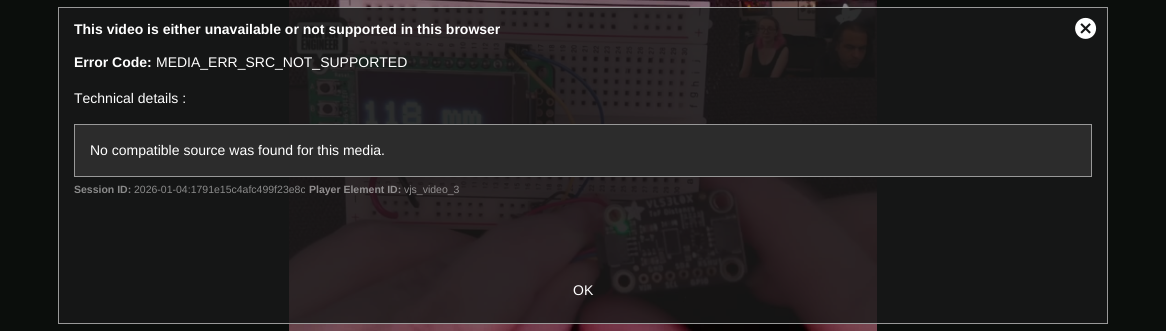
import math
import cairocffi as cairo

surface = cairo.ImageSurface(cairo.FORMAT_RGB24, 1166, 331)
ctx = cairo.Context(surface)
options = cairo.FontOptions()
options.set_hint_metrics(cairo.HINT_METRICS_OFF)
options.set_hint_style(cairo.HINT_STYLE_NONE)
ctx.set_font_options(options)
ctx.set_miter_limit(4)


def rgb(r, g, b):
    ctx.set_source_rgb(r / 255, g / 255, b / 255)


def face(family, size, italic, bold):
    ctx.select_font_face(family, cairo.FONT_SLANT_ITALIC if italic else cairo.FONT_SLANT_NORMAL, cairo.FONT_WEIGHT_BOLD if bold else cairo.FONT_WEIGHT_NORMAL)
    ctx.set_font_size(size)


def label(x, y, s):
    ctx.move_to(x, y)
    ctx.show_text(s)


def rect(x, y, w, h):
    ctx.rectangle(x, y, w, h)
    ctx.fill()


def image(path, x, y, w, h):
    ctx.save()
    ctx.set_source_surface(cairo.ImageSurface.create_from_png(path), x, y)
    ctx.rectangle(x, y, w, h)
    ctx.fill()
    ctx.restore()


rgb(11, 14, 12)
ctx.paint()
rgb(21, 22, 22)
rect(59, 8, 1048, 315)
image('image0.png', 289, 0, 588, 331)
ctx.rectangle(58.5, 7.5, 1049, 316)
rgb(153, 153, 153)
ctx.set_line_width(1)
ctx.stroke()
face('Liberation Sans', 14, 0, 1)
rgb(255, 255, 255)
label(74, 34, 'This video is either unavailable or not supported in this browser')
label(74, 67, 'Error Code:')
face('Liberation Sans', 14, 0, 0)
label(156, 67, 'MEDIA_ERR_SRC_NOT_SUPPORTED')
label(74, 103, 'Technical details :')
rgb(44, 44, 44)
ctx.rectangle(74.5, 124.5, 1017, 52)
ctx.fill_preserve()
rgb(153, 153, 153)
ctx.stroke()
rgb(255, 255, 255)
label(90, 155, 'No compatible source was found for this media.')
face('Liberation Sans', 10.5, 0, 1)
rgb(138, 138, 138)
label(74, 193, 'Session ID:')
face('Liberation Sans', 10.5, 0, 0)
label(134, 193, '2026-01-04:1791e15c4afc499f23e8c')
face('Liberation Sans', 10.5, 0, 1)
rgb(145, 142, 143)
label(309, 193, 'Player Element ID:')
face('Liberation Sans', 10.5, 0, 0)
label(404, 193, 'vjs_video_3')
image('image1.png', 1075, 17, 22, 22)
face('Liberation Sans', 14, 0, 0)
rgb(255, 255, 255)
label(573, 295, 'OK')
surface.write_to_png('render.png')
